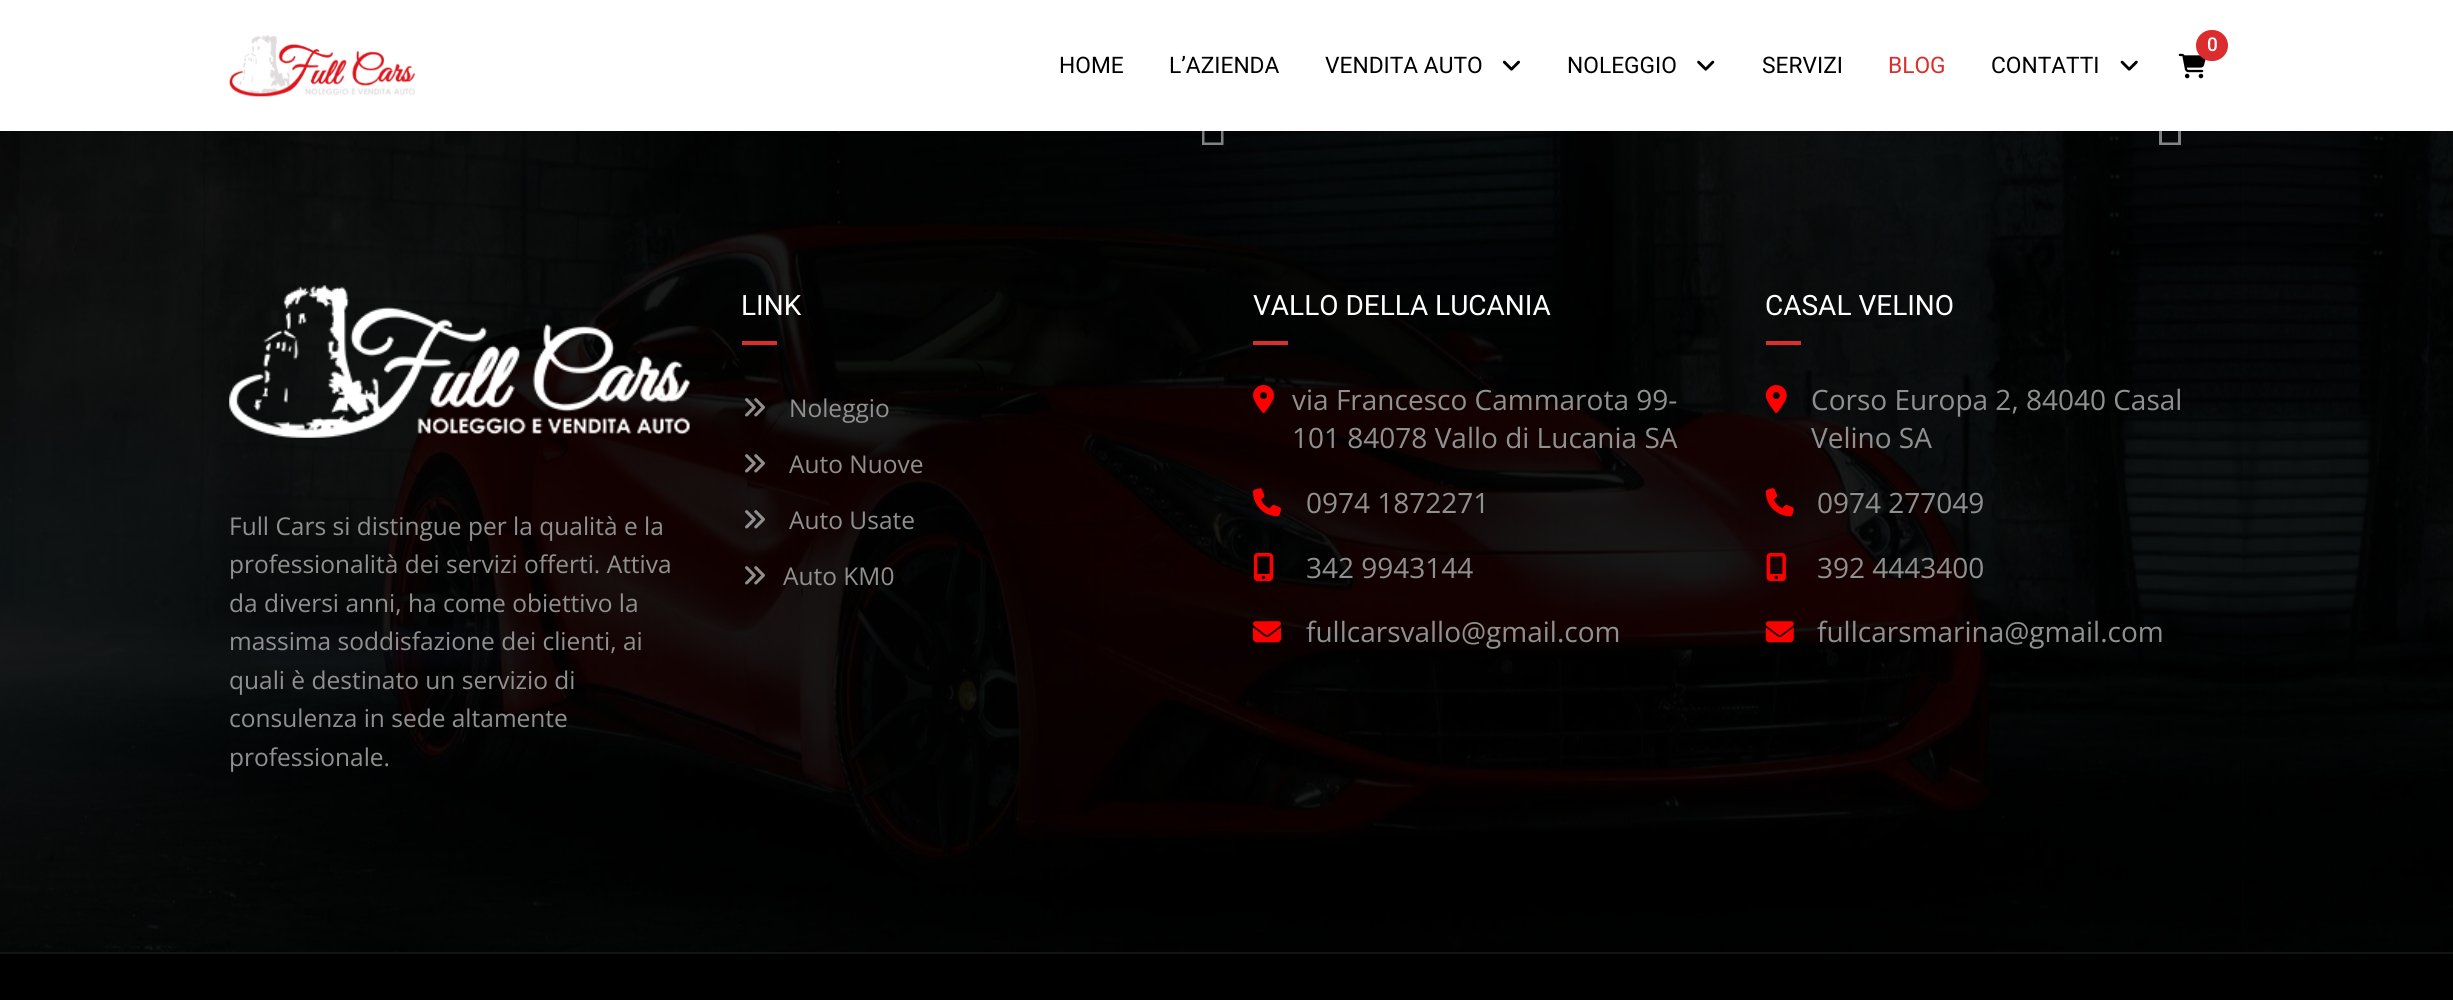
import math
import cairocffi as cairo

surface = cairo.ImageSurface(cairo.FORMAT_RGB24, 2453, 1000)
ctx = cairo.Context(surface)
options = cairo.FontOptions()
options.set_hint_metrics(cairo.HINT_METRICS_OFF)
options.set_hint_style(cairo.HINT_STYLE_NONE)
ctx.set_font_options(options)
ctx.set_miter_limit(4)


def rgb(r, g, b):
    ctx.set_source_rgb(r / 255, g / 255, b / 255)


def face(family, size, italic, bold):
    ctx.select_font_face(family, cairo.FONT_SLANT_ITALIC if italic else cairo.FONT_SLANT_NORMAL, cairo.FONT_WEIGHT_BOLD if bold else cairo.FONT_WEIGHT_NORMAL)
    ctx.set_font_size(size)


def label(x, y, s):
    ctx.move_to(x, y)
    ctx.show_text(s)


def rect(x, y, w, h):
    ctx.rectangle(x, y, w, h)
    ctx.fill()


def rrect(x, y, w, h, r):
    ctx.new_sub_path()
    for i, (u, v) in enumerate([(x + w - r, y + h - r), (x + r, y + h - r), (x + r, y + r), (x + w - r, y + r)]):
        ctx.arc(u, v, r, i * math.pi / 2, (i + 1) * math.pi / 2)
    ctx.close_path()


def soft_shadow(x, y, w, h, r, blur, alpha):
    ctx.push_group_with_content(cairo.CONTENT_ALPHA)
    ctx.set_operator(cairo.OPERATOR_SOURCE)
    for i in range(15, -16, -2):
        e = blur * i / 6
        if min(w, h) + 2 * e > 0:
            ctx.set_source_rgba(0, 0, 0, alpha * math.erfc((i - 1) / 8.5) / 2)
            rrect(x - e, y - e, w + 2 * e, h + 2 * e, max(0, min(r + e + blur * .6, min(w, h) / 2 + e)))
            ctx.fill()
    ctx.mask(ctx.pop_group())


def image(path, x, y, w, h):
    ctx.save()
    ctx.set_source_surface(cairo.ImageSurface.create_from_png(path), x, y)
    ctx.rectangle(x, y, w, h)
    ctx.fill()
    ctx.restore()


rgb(255, 255, 255)
ctx.paint()
image('image5.png', 0, 131, 2453, 821)
ctx.set_source_rgba(1, 1, 1, 0.5)
ctx.new_path()
ctx.move_to(1202, 145)
ctx.line_to(1202, 108)
ctx.line_to(1223.5, 108)
ctx.line_to(1223.5, 145)
ctx.close_path()
ctx.move_to(1204.5, 142.5)
ctx.line_to(1221, 142.5)
ctx.line_to(1221, 110.5)
ctx.line_to(1204.5, 110.5)
ctx.close_path()
ctx.fill()
ctx.new_path()
ctx.move_to(2159, 145)
ctx.line_to(2159, 108)
ctx.line_to(2181, 108)
ctx.line_to(2181, 145)
ctx.close_path()
ctx.move_to(2162, 142.5)
ctx.line_to(2178, 142.5)
ctx.line_to(2178, 110.5)
ctx.line_to(2162, 110.5)
ctx.close_path()
ctx.fill()
rgb(0, 0, 0)
soft_shadow(0, 0, 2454, 131, 0, 4.5, 0.2)
rgb(255, 255, 255)
rect(0, 0, 2453, 131)
image('image0.png', 229, 35, 186, 62)
image('image1.png', 2178, 53, 28, 26)
rgb(219, 45, 46)
rrect(2196, 30, 32, 31, 15.5)
ctx.fill()
face('Roboto Medium', 19, 0, 0)
rgb(255, 255, 255)
label(2207, 51, '0')
face('Roboto', 22.75, 0, 0)
rgb(0, 0, 0)
label(1059, 73, 'HOME')
label(1169, 73, 'L’AZIENDA')
label(1325, 73, 'VENDITA AUTO')
image('image2.png', 1502, 60, 18, 11)
label(1567, 73, 'NOLEGGIO')
image('image3.png', 1697, 60, 18, 11)
label(1762, 73, 'SERVIZI')
rgb(219, 46, 45)
label(1888, 73, 'BLOG')
rgb(0, 0, 0)
label(1991, 73, 'CONTATTI')
image('image4.png', 2120, 60, 18, 11)
face('Roboto', 28, 0, 0)
rgb(255, 255, 255)
label(741, 315, 'LINK')
rgb(219, 46, 45)
rect(742, 341, 35, 4)
image('image6.png', 745, 398, 20, 19)
face('Open Sans', 24.5, 0, 0)
rgb(144, 144, 144)
label(789, 417, 'Noleggio')
image('image7.png', 745, 454, 20, 19)
label(789, 473, 'Auto Nuove')
image('image8.png', 745, 510, 20, 19)
label(789, 529, 'Auto Usate')
image('image9.png', 745, 566, 20, 19)
label(783, 585, 'Auto KM0')
face('Roboto', 28, 0, 0)
rgb(255, 255, 255)
label(1253, 315, 'VALLO DELLA LUCANIA')
rgb(219, 46, 45)
rect(1253, 341, 35, 4)
image('image10.png', 1253, 385, 21, 28)
face('Open Sans', 28, 0, 0)
rgb(144, 144, 144)
label(1292, 410, 'via Francesco Cammarota 99-')
label(1292, 448, '101 84078 Vallo di Lucania SA')
image('image11.png', 1253, 488, 28, 29)
label(1306, 513, '0974 1872271')
image('image12.png', 1253, 553, 21, 28)
label(1306, 578, '342 9943144')
image('image13.png', 1253, 621, 28, 22)
label(1306, 642, 'fullcarsvallo@gmail.com')
face('Roboto', 28, 0, 0)
rgb(255, 255, 255)
label(1765, 315, 'CASAL VELINO')
rgb(219, 46, 45)
rect(1766, 341, 35, 4)
image('image14.png', 1765, 385, 22, 28)
face('Open Sans', 28, 0, 0)
rgb(144, 144, 144)
label(1811, 410, 'Corso Europa 2, 84040 Casal')
label(1811, 448, 'Velino SA')
image('image15.png', 1765, 488, 29, 29)
label(1817, 513, '0974 277049')
image('image16.png', 1766, 553, 20, 28)
label(1817, 578, '392 4443400')
image('image17.png', 1765, 621, 29, 22)
label(1817, 642, 'fullcarsmarina@gmail.com')
image('image18.png', 229, 285, 461, 153)
face('Open Sans', 24.5, 0, 0)
label(229, 535, 'Full Cars si distingue per la qualità e la')
label(229, 573, 'professionalità dei servizi offerti. Attiva')
label(229, 612, 'da diversi anni, ha come obiettivo la')
label(229, 650, 'massima soddisfazione dei clienti, ai')
label(229, 689, 'quali è destinato un servizio di')
label(229, 727, 'consulenza in sede altamente')
label(229, 766, 'professionale.')
rgb(0, 0, 0)
rect(0, 954, 2453, 46)
rgb(20, 20, 20)
rect(0, 952, 2453, 2)
surface.write_to_png('render.png')
